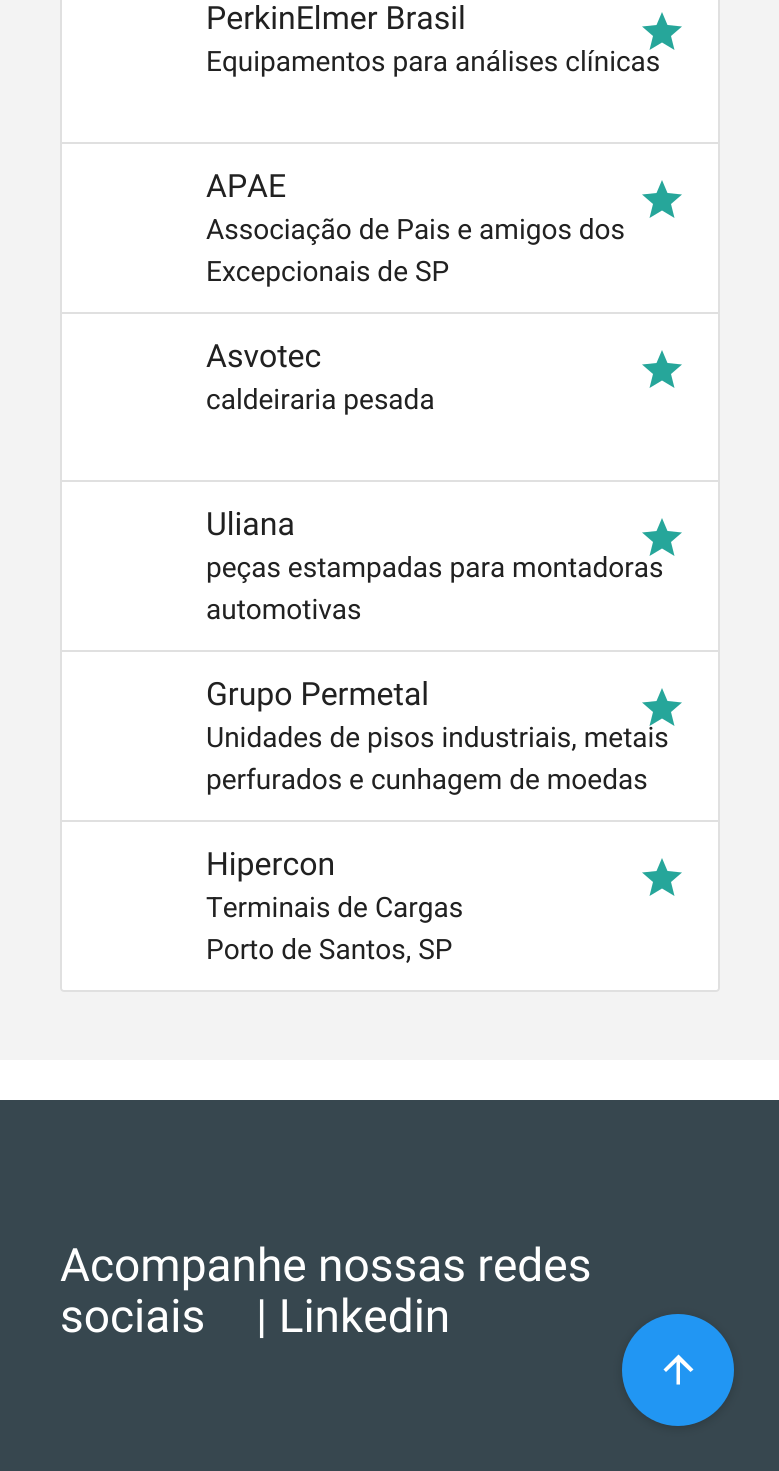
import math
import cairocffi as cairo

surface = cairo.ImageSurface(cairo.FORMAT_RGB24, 779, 1471)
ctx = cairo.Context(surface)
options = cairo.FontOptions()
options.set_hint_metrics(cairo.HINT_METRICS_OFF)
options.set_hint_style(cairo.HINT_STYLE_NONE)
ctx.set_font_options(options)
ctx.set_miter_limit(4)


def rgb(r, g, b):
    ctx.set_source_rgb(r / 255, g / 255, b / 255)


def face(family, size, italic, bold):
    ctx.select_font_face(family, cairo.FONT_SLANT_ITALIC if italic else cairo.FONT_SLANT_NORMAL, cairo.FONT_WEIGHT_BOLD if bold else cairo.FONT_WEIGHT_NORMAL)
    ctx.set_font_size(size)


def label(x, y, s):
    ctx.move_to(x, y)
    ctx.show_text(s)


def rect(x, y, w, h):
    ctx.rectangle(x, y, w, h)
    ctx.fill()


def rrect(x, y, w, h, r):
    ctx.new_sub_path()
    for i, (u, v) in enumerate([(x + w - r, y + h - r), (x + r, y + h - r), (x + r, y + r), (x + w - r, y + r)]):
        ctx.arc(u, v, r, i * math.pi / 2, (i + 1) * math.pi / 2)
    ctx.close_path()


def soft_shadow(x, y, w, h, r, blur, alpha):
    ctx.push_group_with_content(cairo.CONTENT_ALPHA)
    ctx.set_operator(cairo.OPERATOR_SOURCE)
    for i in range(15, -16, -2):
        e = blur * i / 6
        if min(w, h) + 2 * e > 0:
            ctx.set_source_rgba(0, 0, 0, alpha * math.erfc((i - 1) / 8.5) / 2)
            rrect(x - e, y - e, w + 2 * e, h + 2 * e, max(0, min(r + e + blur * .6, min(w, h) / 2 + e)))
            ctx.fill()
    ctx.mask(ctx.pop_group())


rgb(243, 243, 243)
ctx.paint()
rrect(61, -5, 658, 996, 3)
rgb(224, 224, 224)
ctx.stroke()
rgb(255, 255, 255)
rect(62, 0, 656, 142)
rgb(224, 224, 224)
rect(62, 142, 656, 2)
face('Roboto', 32, 0, 0)
rgb(33, 33, 33)
label(206, 29, 'PerkinElmer Brasil')
rgb(38, 166, 154)
ctx.new_path()
ctx.move_to(662, 42.5)
ctx.line_to(649.5, 50)
ctx.line_to(653, 36)
ctx.line_to(642, 26.5)
ctx.line_to(656.5, 25)
ctx.line_to(662, 12)
ctx.line_to(667.5, 25)
ctx.line_to(682, 26.5)
ctx.line_to(671, 36)
ctx.line_to(674.5, 50)
ctx.close_path()
ctx.fill()
face('Roboto', 28, 0, 0)
rgb(33, 33, 33)
label(206, 71, 'Equipamentos para análises clínicas')
rgb(255, 255, 255)
rect(62, 144, 656, 168)
rgb(224, 224, 224)
rect(62, 312, 656, 2)
face('Roboto', 32, 0, 0)
rgb(33, 33, 33)
label(206, 197, 'APAE')
rgb(38, 166, 154)
ctx.new_path()
ctx.move_to(662, 210.5)
ctx.line_to(649.5, 218)
ctx.line_to(653, 204)
ctx.line_to(642, 194.5)
ctx.line_to(656.5, 193)
ctx.line_to(662, 180)
ctx.line_to(667.5, 193)
ctx.line_to(682, 194.5)
ctx.line_to(671, 204)
ctx.line_to(674.5, 218)
ctx.close_path()
ctx.fill()
face('Roboto', 28, 0, 0)
rgb(33, 33, 33)
label(206, 239, 'Associação de Pais e amigos dos')
label(206, 281, 'Excepcionais de SP')
rgb(255, 255, 255)
rect(62, 314, 656, 166)
rgb(224, 224, 224)
rect(62, 480, 656, 2)
face('Roboto', 32, 0, 0)
rgb(33, 33, 33)
label(206, 367, 'Asvotec')
rgb(38, 166, 154)
ctx.new_path()
ctx.move_to(662, 380.5)
ctx.line_to(649.5, 388)
ctx.line_to(653, 374)
ctx.line_to(642, 364.5)
ctx.line_to(656.5, 363)
ctx.line_to(662, 350)
ctx.line_to(667.5, 363)
ctx.line_to(682, 364.5)
ctx.line_to(671, 374)
ctx.line_to(674.5, 388)
ctx.close_path()
ctx.fill()
face('Roboto', 28, 0, 0)
rgb(33, 33, 33)
label(206, 409, 'caldeiraria pesada')
rgb(255, 255, 255)
rect(62, 482, 656, 168)
rgb(224, 224, 224)
rect(62, 650, 656, 2)
face('Roboto', 32, 0, 0)
rgb(33, 33, 33)
label(206, 535, 'Uliana')
rgb(38, 166, 154)
ctx.new_path()
ctx.move_to(662, 548.5)
ctx.line_to(649.5, 556)
ctx.line_to(653, 542)
ctx.line_to(642, 532.5)
ctx.line_to(656.5, 531)
ctx.line_to(662, 518)
ctx.line_to(667.5, 531)
ctx.line_to(682, 532.5)
ctx.line_to(671, 542)
ctx.line_to(674.5, 556)
ctx.close_path()
ctx.fill()
face('Roboto', 28, 0, 0)
rgb(33, 33, 33)
label(206, 577, 'peças estampadas para montadoras')
label(206, 619, 'automotivas')
rgb(255, 255, 255)
rect(62, 652, 656, 168)
rgb(224, 224, 224)
rect(62, 820, 656, 2)
face('Roboto', 32, 0, 0)
rgb(33, 33, 33)
label(206, 705, 'Grupo Permetal')
rgb(38, 166, 154)
ctx.new_path()
ctx.move_to(662, 718.5)
ctx.line_to(649.5, 726)
ctx.line_to(653, 712)
ctx.line_to(642, 702.5)
ctx.line_to(656.5, 701)
ctx.line_to(662, 688)
ctx.line_to(667.5, 701)
ctx.line_to(682, 702.5)
ctx.line_to(671, 712)
ctx.line_to(674.5, 726)
ctx.close_path()
ctx.fill()
face('Roboto', 28, 0, 0)
rgb(33, 33, 33)
label(206, 747, 'Unidades de pisos industriais, metais')
label(206, 789, 'perfurados e cunhagem de moedas')
rgb(255, 255, 255)
ctx.new_path()
ctx.move_to(62, 822)
ctx.line_to(718, 822)
ctx.line_to(718, 988)
ctx.curve_to(718, 989, 717, 990, 716, 990)
ctx.line_to(64, 990)
ctx.curve_to(63, 990, 62, 989, 62, 988)
ctx.close_path()
ctx.fill()
face('Roboto', 32, 0, 0)
rgb(33, 33, 33)
label(206, 875, 'Hipercon')
rgb(38, 166, 154)
ctx.new_path()
ctx.move_to(662, 888.5)
ctx.line_to(649.5, 896)
ctx.line_to(653, 882)
ctx.line_to(642, 872.5)
ctx.line_to(656.5, 871)
ctx.line_to(662, 858)
ctx.line_to(667.5, 871)
ctx.line_to(682, 872.5)
ctx.line_to(671, 882)
ctx.line_to(674.5, 896)
ctx.close_path()
ctx.fill()
face('Roboto', 28, 0, 0)
rgb(33, 33, 33)
label(206, 917, 'Terminais de Cargas')
label(206, 959, 'Porto de Santos, SP')
rgb(255, 255, 255)
rect(0, 1060, 779, 40)
rgb(55, 71, 79)
rect(0, 1100, 779, 371)
face('Roboto', 46, 0, 0)
rgb(255, 255, 255)
label(60, 1281, 'Acompanhe nossas redes')
label(60, 1332, 'sociais')
label(256, 1332, '| Linkedin')
rgb(0, 0, 0)
soft_shadow(622, 1316, 112, 112, 56, 5, 0.2)
rgb(33, 150, 243)
ctx.arc(678, 1370, 56, 0, 2 * math.pi)
ctx.fill()
rgb(255, 255, 255)
ctx.new_path()
ctx.move_to(663.5, 1369.5)
ctx.line_to(678.5, 1354.5)
ctx.line_to(693.5, 1369.5)
ctx.line_to(690.5, 1372)
ctx.line_to(680, 1362)
ctx.line_to(680, 1384.5)
ctx.line_to(676.5, 1384.5)
ctx.line_to(676.5, 1362)
ctx.line_to(666, 1372)
ctx.close_path()
ctx.fill()
surface.write_to_png('render.png')
